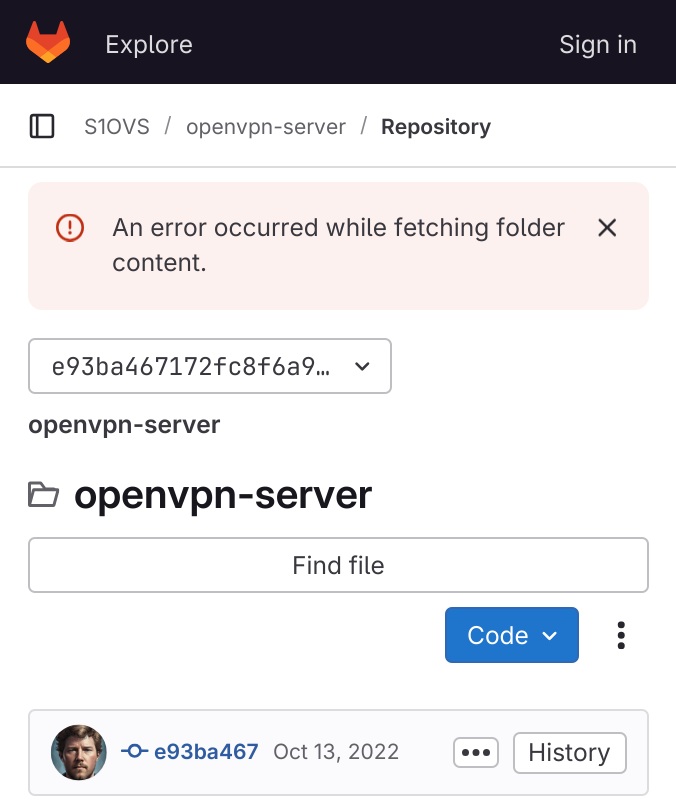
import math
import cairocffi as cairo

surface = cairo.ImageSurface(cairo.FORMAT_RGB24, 676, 810)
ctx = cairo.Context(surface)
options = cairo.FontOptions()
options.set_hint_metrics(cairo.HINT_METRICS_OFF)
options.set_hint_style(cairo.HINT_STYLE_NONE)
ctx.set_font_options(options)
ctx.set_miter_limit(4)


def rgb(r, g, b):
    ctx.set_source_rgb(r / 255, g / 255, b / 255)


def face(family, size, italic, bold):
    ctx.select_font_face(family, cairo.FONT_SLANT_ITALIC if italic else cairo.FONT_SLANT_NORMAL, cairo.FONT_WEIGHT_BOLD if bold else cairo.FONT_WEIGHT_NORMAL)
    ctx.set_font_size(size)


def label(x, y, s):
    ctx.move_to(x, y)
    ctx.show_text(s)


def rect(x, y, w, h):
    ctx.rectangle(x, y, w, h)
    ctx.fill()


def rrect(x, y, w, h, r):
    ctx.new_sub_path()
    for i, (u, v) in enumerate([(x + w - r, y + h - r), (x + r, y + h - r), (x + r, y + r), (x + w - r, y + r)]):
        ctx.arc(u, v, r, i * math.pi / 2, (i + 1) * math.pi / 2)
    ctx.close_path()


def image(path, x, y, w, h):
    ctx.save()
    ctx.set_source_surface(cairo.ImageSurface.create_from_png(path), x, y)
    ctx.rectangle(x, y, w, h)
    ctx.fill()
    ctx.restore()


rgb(255, 255, 255)
ctx.paint()
rgb(23, 19, 33)
rect(0, 0, 676, 84)
image('image0.png', 26, 21, 44, 42)
face('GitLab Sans', 24.5, 0, 0)
rgb(220, 220, 222)
label(105, 53, 'Explore')
label(559, 53, 'Sign in')
rect(0, 166, 676, 2)
image('image1.png', 29, 113, 26, 26)
face('GitLab Sans', 21, 0, 0)
rgb(98, 97, 104)
label(84, 134, 'S1OVS')
rgb(137, 136, 141)
label(164, 132, '/')
rgb(98, 97, 104)
label(186, 134, 'openvpn-server')
rgb(137, 136, 141)
label(360, 132, '/')
face('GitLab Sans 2 SemiBold', 21, 0, 0)
rgb(58, 56, 63)
label(381, 134, 'Repository')
rgb(252, 241, 239)
rrect(28, 182, 621, 128, 14)
ctx.fill()
image('image2.png', 56, 214, 28, 28)
face('GitLab Sans', 24.5, 0, 0)
rgb(58, 56, 63)
label(112, 236, 'An error occurred while fetching folder')
label(112, 271, 'content.')
image('image3.png', 598, 218, 18, 19)
rrect(29, 339, 362, 54, 6)
rgb(191, 191, 195)
ctx.stroke()
face('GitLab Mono', 24.5, 0, 0)
rgb(58, 56, 63)
label(51, 375, 'e93ba467172fc8f6a9…')
image('image4.png', 355, 362, 15, 9)
face('GitLab Sans 2 SemiBold', 24.5, 0, 0)
label(28, 433, 'openvpn-server')
image('image5.png', 28, 481, 32, 26)
face('GitLab Sans SemiBold', 40.25, 0, 0)
rgb(24, 23, 29)
label(74, 508, 'openvpn-server')
rrect(29, 538, 619, 54, 6)
rgb(191, 191, 195)
ctx.stroke()
face('GitLab Sans', 24.5, 0, 0)
rgb(58, 56, 63)
label(292, 574, 'Find file')
rgb(31, 117, 203)
rrect(446, 608, 132, 54, 6)
ctx.fill_preserve()
rgb(47, 104, 180)
ctx.stroke()
rgb(255, 255, 255)
label(467, 644, 'Code')
image('image6.png', 542, 631, 15, 10)
image('image7.png', 617, 621, 8, 29)
rgb(251, 250, 253)
rrect(29, 710, 619, 85, 6)
ctx.fill_preserve()
rgb(220, 220, 222)
ctx.stroke()
image('image8.png', 50, 724, 57, 57)
ctx.arc(79, 753, 27, 0, 2 * math.pi)
ctx.set_source_rgba(0.02, 0.02, 0.024, 0.08)
ctx.stroke()
image('image9.png', 121, 743, 28, 15)
face('GitLab Sans 2 SemiBold', 21, 0, 0)
rgb(47, 92, 160)
label(154, 759, 'e93ba467')
face('GitLab Sans', 21, 0, 0)
rgb(98, 97, 104)
label(273, 759, 'Oct 13, 2022')
rgb(255, 255, 255)
rrect(454, 738, 44, 29, 6)
ctx.fill_preserve()
rgb(191, 191, 195)
ctx.stroke()
image('image10.png', 462, 749, 28, 7)
rgb(255, 255, 255)
rrect(514, 733, 112, 40, 6)
ctx.fill_preserve()
rgb(191, 191, 195)
ctx.stroke()
face('GitLab Sans', 24.5, 0, 0)
rgb(58, 56, 63)
label(528, 761, 'History')
surface.write_to_png('render.png')
